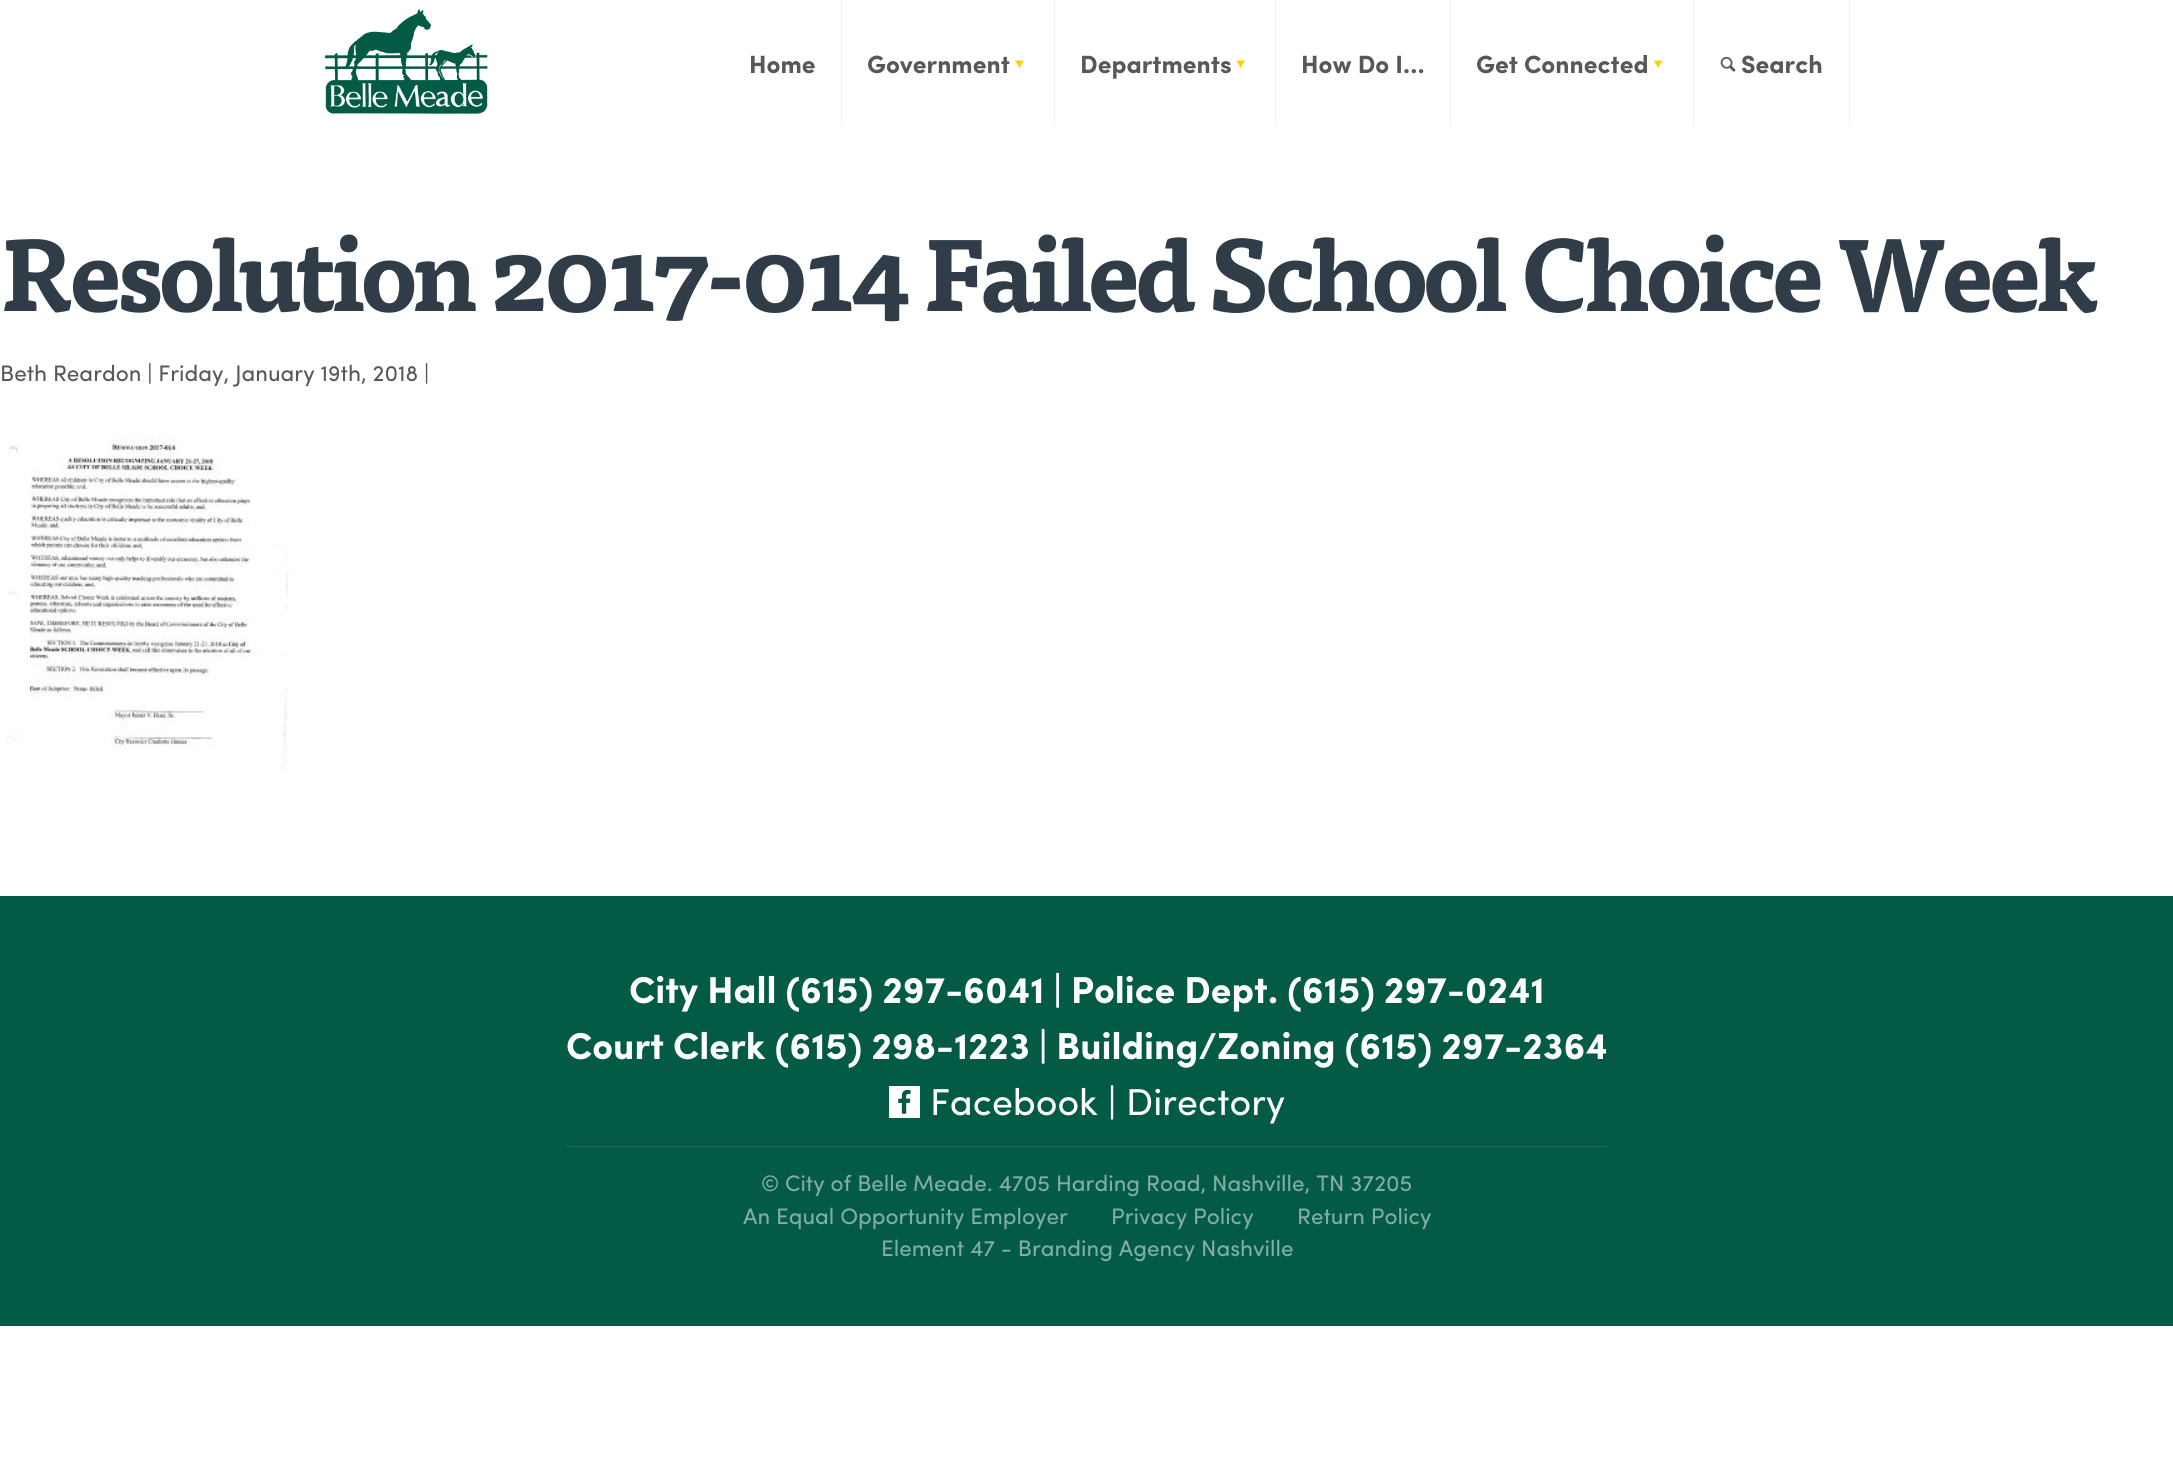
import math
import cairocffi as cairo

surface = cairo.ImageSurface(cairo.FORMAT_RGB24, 2173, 1484)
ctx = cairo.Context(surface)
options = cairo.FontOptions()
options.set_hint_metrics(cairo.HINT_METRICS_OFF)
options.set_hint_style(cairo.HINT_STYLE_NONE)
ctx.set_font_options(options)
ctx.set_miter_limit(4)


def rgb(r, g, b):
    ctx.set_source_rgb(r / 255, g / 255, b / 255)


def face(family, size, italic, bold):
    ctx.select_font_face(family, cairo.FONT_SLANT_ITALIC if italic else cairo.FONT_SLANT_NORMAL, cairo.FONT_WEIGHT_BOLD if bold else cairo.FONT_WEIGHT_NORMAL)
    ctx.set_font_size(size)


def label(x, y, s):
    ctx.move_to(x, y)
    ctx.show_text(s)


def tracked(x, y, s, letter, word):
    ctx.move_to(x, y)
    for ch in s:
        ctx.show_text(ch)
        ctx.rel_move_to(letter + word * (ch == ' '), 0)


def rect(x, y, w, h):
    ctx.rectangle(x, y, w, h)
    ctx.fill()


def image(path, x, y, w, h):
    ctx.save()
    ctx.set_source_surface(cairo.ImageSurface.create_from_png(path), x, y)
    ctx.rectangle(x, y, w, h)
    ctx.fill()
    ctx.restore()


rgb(255, 255, 255)
ctx.paint()
image('image0.png', 325, 8, 163, 106)
rgb(238, 238, 238)
rect(841, 0, 1, 125)
face('Sofia', 25, 0, 1)
rgb(88, 88, 90)
label(749, 73, 'Home')
rgb(238, 238, 238)
rect(1054, 0, 1, 125)
rgb(88, 88, 90)
label(867, 73, 'Government')
rgb(254, 205, 8)
ctx.new_path()
ctx.move_to(1023.5, 60.5)
ctx.line_to(1015, 60.5)
ctx.line_to(1019.5, 68)
ctx.close_path()
ctx.fill()
rgb(238, 238, 238)
rect(1275, 0, 1, 125)
rgb(88, 88, 90)
label(1080, 73, 'Departments')
rgb(254, 205, 8)
ctx.new_path()
ctx.move_to(1245, 60.5)
ctx.line_to(1236.5, 60.5)
ctx.line_to(1240.5, 68)
ctx.close_path()
ctx.fill()
rgb(238, 238, 238)
rect(1450, 0, 1, 125)
rgb(88, 88, 90)
label(1301, 73, 'How Do I…')
rgb(238, 238, 238)
rect(1693, 0, 1, 125)
rgb(88, 88, 90)
label(1476, 73, 'Get Connected')
rgb(254, 205, 8)
ctx.new_path()
ctx.move_to(1662.5, 60.5)
ctx.line_to(1654, 60.5)
ctx.line_to(1658, 68)
ctx.close_path()
ctx.fill()
rgb(238, 238, 238)
rect(1849, 0, 1, 125)
image('image1.png', 1720, 56, 16, 16)
rgb(88, 88, 90)
label(1741, 73, 'Search')
face('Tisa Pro', 100, 0, 1)
rgb(48, 60, 71)
tracked(0, 311, 'Resolution 2017-014 Failed School Choice Week', -5, 0)
face('Sofia', 22.5, 0, 0)
rgb(88, 88, 90)
label(0, 381, 'Beth Reardon | Friday, January 19th, 2018 |')
image('image2.png', 6, 437, 283, 333)
rgb(4, 91, 69)
rect(0, 896, 2173, 430)
rgb(29, 107, 88)
rect(566, 1146, 1042, 1)
face('Sofia', 37.5, 0, 1)
rgb(255, 255, 255)
label(629, 1003, 'City Hall (615) 297-6041 | Police Dept. (615) 297-0241')
label(566, 1059, 'Court Clerk (615) 298-1223 | Building/Zoning (615) 297-2364')
rect(889, 1086, 31, 32)
image('image3.png', 898, 1090, 13, 24)
face('Sofia', 37.5, 0, 0)
label(930, 1115, 'Facebook | Directory')
face('Sofia', 22.5, 0, 0)
rgb(130, 173, 162)
label(761, 1191, '© City of Belle Meade. 4705 Harding Road, Nashville, TN 37205')
label(743, 1224, 'An Equal Opportunity Employer')
label(1111, 1224, 'Privacy Policy')
label(1297, 1224, 'Return Policy')
label(881, 1256, 'Element 47 - Branding Agency Nashville')
surface.write_to_png('render.png')
